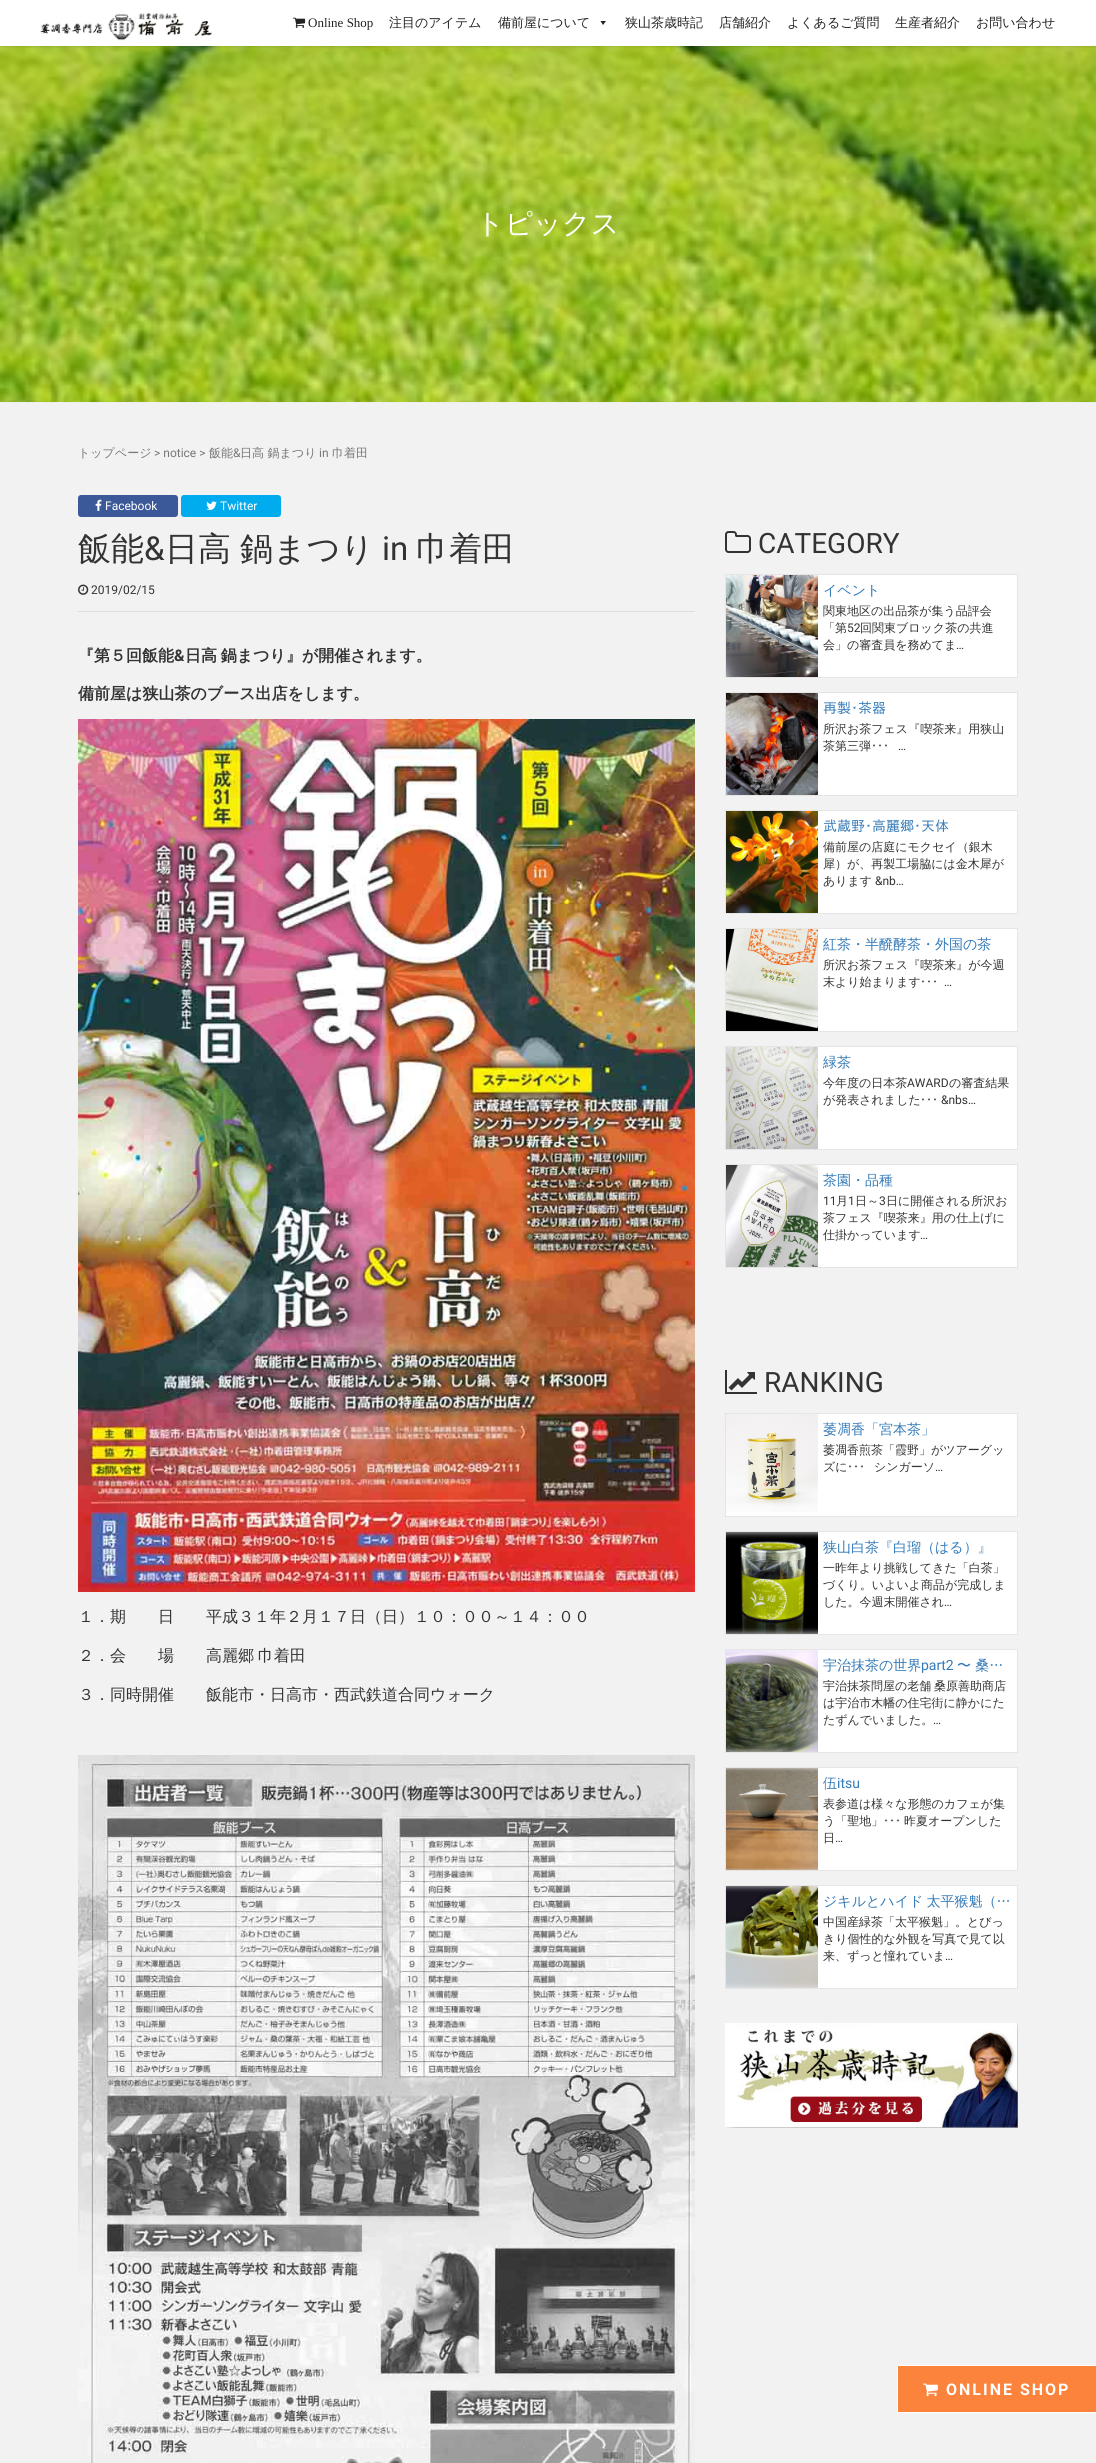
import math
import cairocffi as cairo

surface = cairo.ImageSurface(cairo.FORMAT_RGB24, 1096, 2463)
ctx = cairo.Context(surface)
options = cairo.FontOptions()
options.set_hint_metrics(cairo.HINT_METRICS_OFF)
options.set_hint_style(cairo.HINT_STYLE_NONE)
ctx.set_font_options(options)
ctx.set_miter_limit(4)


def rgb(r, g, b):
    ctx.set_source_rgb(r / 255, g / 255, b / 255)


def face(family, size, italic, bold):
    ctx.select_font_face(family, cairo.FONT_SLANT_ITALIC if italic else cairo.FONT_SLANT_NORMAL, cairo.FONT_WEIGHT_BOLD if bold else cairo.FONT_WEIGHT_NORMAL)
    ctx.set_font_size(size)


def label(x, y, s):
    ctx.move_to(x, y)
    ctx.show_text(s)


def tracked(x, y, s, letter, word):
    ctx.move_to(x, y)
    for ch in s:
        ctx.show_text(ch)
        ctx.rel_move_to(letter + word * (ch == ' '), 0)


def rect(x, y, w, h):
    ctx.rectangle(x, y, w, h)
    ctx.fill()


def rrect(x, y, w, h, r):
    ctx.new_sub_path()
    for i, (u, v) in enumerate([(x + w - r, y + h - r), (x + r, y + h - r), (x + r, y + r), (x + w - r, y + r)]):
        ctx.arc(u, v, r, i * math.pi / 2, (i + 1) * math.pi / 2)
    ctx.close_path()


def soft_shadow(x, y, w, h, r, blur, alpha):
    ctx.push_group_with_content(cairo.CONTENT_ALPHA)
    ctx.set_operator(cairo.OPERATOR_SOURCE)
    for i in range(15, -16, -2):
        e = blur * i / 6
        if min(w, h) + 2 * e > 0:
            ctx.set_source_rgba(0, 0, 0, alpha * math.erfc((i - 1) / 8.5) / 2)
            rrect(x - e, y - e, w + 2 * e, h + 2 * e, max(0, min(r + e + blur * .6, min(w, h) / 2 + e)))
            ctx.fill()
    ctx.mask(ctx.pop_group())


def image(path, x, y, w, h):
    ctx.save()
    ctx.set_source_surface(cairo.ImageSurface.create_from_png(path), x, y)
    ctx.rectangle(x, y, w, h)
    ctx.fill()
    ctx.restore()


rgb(242, 242, 242)
ctx.paint()
image('image2.png', 0, 46, 1096, 356)
rgb(0, 0, 0)
soft_shadow(0, 0, 1096, 46, 0, 1.5, 0.2)
rgb(255, 255, 255)
rect(0, 0, 1096, 46)
image('image0.png', 40, 12, 172, 29)
image('image1.png', 293, 17, 13, 11)
face('Liberation Serif', 13, 0, 0)
rgb(34, 34, 34)
label(308, 27, 'Online Shop')
face('WenQuanYi Zen Hei Medium', 13, 0, 0)
label(389, 27, '注目のアイテム')
label(498, 27, '備前屋について')
ctx.new_path()
ctx.move_to(606, 21)
ctx.line_to(603, 25)
ctx.line_to(600.5, 21)
ctx.close_path()
ctx.fill()
label(625, 27, '狭山茶歳時記')
label(719, 27, '店舗紹介')
label(787, 27, 'よくあるご質問')
label(895, 27, '生産者紹介')
label(976, 27, 'お問い合わせ')
rgb(238, 238, 238)
rect(0, 402, 1096, 1)
face('WenQuanYi Zen Hei Medium', 28, 0, 0)
rgb(255, 255, 255)
label(476, 233, 'トピックス')
face('WenQuanYi Zen Hei Medium', 12, 0, 0)
rgb(119, 119, 119)
label(78, 457, 'トップページ')
face('Roboto', 12, 0, 0)
label(154, 457, '> notice >')
face('WenQuanYi Zen Hei Medium', 12, 0, 0)
label(209, 457, '飯能')
face('Roboto', 12, 0, 0)
label(233, 457, '&')
face('WenQuanYi Zen Hei Medium', 12, 0, 0)
label(240, 457, '日高 鍋まつり')
face('Roboto', 12, 0, 0)
label(319, 457, 'in')
face('WenQuanYi Zen Hei Medium', 12, 0, 0)
label(332, 457, '巾着田')
rgb(59, 89, 152)
rrect(78, 495, 100, 22, 3)
ctx.fill()
image('image3.png', 95, 499, 7, 12)
face('Roboto', 12, 0, 0)
rgb(255, 255, 255)
label(105, 510, 'Facebook')
rgb(0, 172, 237)
rrect(181, 495, 100, 22, 3)
ctx.fill()
image('image4.png', 206, 501, 11, 9)
rgb(255, 255, 255)
label(220, 510, 'Twitter')
face('WenQuanYi Zen Hei Medium', 33, 0, 0)
rgb(51, 51, 51)
label(78, 560, '飯能')
face('Roboto', 33, 0, 0)
label(144, 560, '&')
face('WenQuanYi Zen Hei Medium', 33, 0, 0)
tracked(165, 560, '日高 鍋まつり', 0, -1)
face('Roboto', 33, 0, 0)
label(382, 560, 'in')
face('WenQuanYi Zen Hei Medium', 33, 0, 0)
label(416, 560, '巾着田')
rgb(221, 221, 221)
rect(78, 611, 617, 1)
image('image5.png', 78, 584, 11, 11)
face('Roboto', 12, 0, 0)
rgb(51, 51, 51)
label(91, 594, '2019/02/15')
face('WenQuanYi Zen Hei', 16, 0, 1)
label(78, 661, '『第５回飯能')
face('Roboto', 16, 0, 1)
label(174, 661, '&')
face('WenQuanYi Zen Hei', 16, 0, 1)
tracked(185, 661, '日高 鍋まつり』が開催されます。', 0, -1)
label(78, 699, '備前屋は狭山茶のブース出店をします。')
image('image6.png', 78, 719, 617, 873)
face('WenQuanYi Zen Hei Medium', 16, 0, 0)
label(78, 1622, '１．期　　日　　平成３１年２月１７日（日）１０：００～１４：００')
tracked(78, 1661, '２．会　　場　　高麗郷 巾着田', 0, -1)
label(78, 1700, '３．同時開催　　飯能市・日高市・西武鉄道合同ウォーク')
image('image7.png', 78, 1755, 617, 708)
image('image8.png', 725, 531, 26, 22)
face('Roboto', 28, 0, 0)
label(758, 553, 'CATEGORY')
rgb(255, 255, 255)
rect(818, 575, 199, 102)
ctx.rectangle(725.5, 574.5, 292, 103)
rgb(229, 229, 229)
ctx.set_line_width(1)
ctx.stroke()
image('image9.png', 726, 575, 92, 102)
face('WenQuanYi Zen Hei Medium', 14, 0, 0)
rgb(51, 122, 183)
label(823, 595, 'イベント')
face('WenQuanYi Zen Hei Medium', 12, 0, 0)
rgb(51, 51, 51)
label(823, 615, '関東地区の出品茶が集う品評会')
label(823, 632, '「第')
face('Roboto', 12, 0, 0)
label(847, 632, '52')
face('WenQuanYi Zen Hei Medium', 12, 0, 0)
label(860, 632, '回関東ブロック茶の共進')
label(823, 649, '会」の審査員を務めてま')
face('Roboto', 12, 0, 0)
label(956, 649, '…')
rgb(255, 255, 255)
rect(818, 693, 199, 102)
ctx.rectangle(725.5, 692.5, 292, 103)
rgb(229, 229, 229)
ctx.stroke()
image('image10.png', 726, 693, 92, 102)
face('IPAPGothic', 14, 0, 0)
rgb(51, 122, 183)
label(823, 713, '再製･茶器')
face('WenQuanYi Zen Hei Medium', 12, 0, 0)
rgb(51, 51, 51)
label(823, 733, '所沢お茶フェス『喫茶来』用狭山')
label(823, 750, '茶第三弾')
face('IPAPGothic', 12, 0, 0)
label(871, 750, '･･･')
face('Roboto', 12, 0, 0)
label(898, 750, '…')
rgb(255, 255, 255)
rect(818, 811, 199, 102)
ctx.rectangle(725.5, 810.5, 292, 103)
rgb(229, 229, 229)
ctx.stroke()
image('image11.png', 726, 811, 92, 102)
face('IPAPGothic', 14, 0, 0)
rgb(51, 122, 183)
label(823, 831, '武蔵野･高麗郷･天体')
face('WenQuanYi Zen Hei Medium', 12, 0, 0)
rgb(51, 51, 51)
label(823, 851, '備前屋の店庭にモクセイ（銀木')
label(823, 868, '犀）が、再製工場脇には金木犀が')
label(823, 885, 'あります')
face('Roboto', 12, 0, 0)
label(875, 885, '&nb…')
rgb(255, 255, 255)
rect(818, 929, 199, 102)
ctx.rectangle(725.5, 928.5, 292, 103)
rgb(229, 229, 229)
ctx.stroke()
image('image12.png', 726, 929, 92, 102)
face('WenQuanYi Zen Hei Medium', 14, 0, 0)
rgb(51, 122, 183)
label(823, 949, '紅茶・半醗酵茶・外国の茶')
face('WenQuanYi Zen Hei Medium', 12, 0, 0)
rgb(51, 51, 51)
label(823, 969, '所沢お茶フェス『喫茶来』が今週')
label(823, 986, '末より始まります')
face('IPAPGothic', 12, 0, 0)
label(920, 986, '･･･')
face('Roboto', 12, 0, 0)
label(944, 986, '…')
rgb(255, 255, 255)
rect(818, 1047, 199, 102)
ctx.rectangle(725.5, 1046.5, 292, 103)
rgb(229, 229, 229)
ctx.stroke()
image('image13.png', 726, 1047, 92, 102)
face('WenQuanYi Zen Hei Medium', 14, 0, 0)
rgb(51, 122, 183)
label(823, 1067, '緑茶')
face('WenQuanYi Zen Hei Medium', 12, 0, 0)
rgb(51, 51, 51)
label(823, 1087, '今年度の日本茶')
face('Roboto', 12, 0, 0)
label(907, 1087, 'AWARD')
face('WenQuanYi Zen Hei Medium', 12, 0, 0)
label(949, 1087, 'の審査結果')
label(823, 1104, 'が発表されました')
face('IPAPGothic', 12, 0, 0)
label(920, 1104, '･･･')
face('Roboto', 12, 0, 0)
label(941, 1104, '&nbs…')
rgb(255, 255, 255)
rect(818, 1165, 199, 102)
ctx.rectangle(725.5, 1164.5, 292, 103)
rgb(229, 229, 229)
ctx.stroke()
image('image14.png', 726, 1165, 92, 102)
face('WenQuanYi Zen Hei Medium', 14, 0, 0)
rgb(51, 122, 183)
label(823, 1185, '茶園・品種')
face('Roboto', 12, 0, 0)
rgb(51, 51, 51)
label(823, 1205, '11')
face('WenQuanYi Zen Hei Medium', 12, 0, 0)
label(836, 1205, '月')
face('Roboto', 12, 0, 0)
label(848, 1205, '1')
face('WenQuanYi Zen Hei Medium', 12, 0, 0)
label(855, 1205, '日～')
face('Roboto', 12, 0, 0)
label(879, 1205, '3')
face('WenQuanYi Zen Hei Medium', 12, 0, 0)
label(886, 1205, '日に開催される所沢お')
label(823, 1222, '茶フェス『喫茶来』用の仕上げに')
label(823, 1239, '仕掛かっています')
face('Roboto', 12, 0, 0)
label(920, 1239, '…')
image('image15.png', 725, 1370, 32, 24)
face('Roboto', 28, 0, 0)
label(764, 1392, 'RANKING')
rgb(255, 255, 255)
ctx.rectangle(725.5, 1413.5, 292, 103)
ctx.fill_preserve()
rgb(229, 229, 229)
ctx.stroke()
image('image16.png', 726, 1414, 92, 98)
face('WenQuanYi Zen Hei Medium', 14, 0, 0)
rgb(51, 122, 183)
label(823, 1434, '萎凋香「宮本茶」')
face('WenQuanYi Zen Hei Medium', 12, 0, 0)
rgb(51, 51, 51)
label(823, 1454, '萎凋香煎茶「霞野」がツアーグッ')
label(823, 1471, 'ズに')
face('IPAPGothic', 12, 0, 0)
label(847, 1471, '･･･')
face('WenQuanYi Zen Hei Medium', 12, 0, 0)
label(874, 1471, 'シンガーソ')
face('Roboto', 12, 0, 0)
label(935, 1471, '…')
rgb(255, 255, 255)
rect(818, 1532, 199, 102)
ctx.rectangle(725.5, 1531.5, 292, 103)
rgb(229, 229, 229)
ctx.stroke()
image('image17.png', 726, 1532, 92, 102)
face('WenQuanYi Zen Hei Medium', 14, 0, 0)
rgb(51, 122, 183)
label(823, 1552, '狭山白茶『白瑠（はる）』')
face('WenQuanYi Zen Hei Medium', 12, 0, 0)
rgb(51, 51, 51)
label(823, 1572, '一昨年より挑戦してきた「白茶」')
label(823, 1589, 'づくり。いよいよ商品が完成しま')
label(823, 1606, 'した。今週末開催され')
face('Roboto', 12, 0, 0)
label(944, 1606, '…')
rgb(255, 255, 255)
rect(818, 1650, 199, 102)
ctx.rectangle(725.5, 1649.5, 292, 103)
rgb(229, 229, 229)
ctx.stroke()
image('image18.png', 726, 1650, 92, 102)
face('WenQuanYi Zen Hei Medium', 14, 0, 0)
rgb(51, 122, 183)
label(823, 1670, '宇治抹茶の世界')
face('Roboto', 14, 0, 0)
label(921, 1670, 'part2')
face('WenQuanYi Zen Hei Medium', 14, 0, 0)
label(957, 1670, '〜 桑…')
face('WenQuanYi Zen Hei Medium', 12, 0, 0)
rgb(51, 51, 51)
tracked(823, 1690, '宇治抹茶問屋の老舗 桑原善助商店', 0, -1)
label(823, 1707, 'は宇治市木幡の住宅街に静かにた')
label(823, 1724, 'たずんでいました。')
face('Roboto', 12, 0, 0)
label(933, 1724, '…')
rgb(255, 255, 255)
rect(818, 1768, 199, 102)
ctx.rectangle(725.5, 1767.5, 292, 103)
rgb(229, 229, 229)
ctx.stroke()
image('image19.png', 726, 1768, 92, 102)
face('WenQuanYi Zen Hei Medium', 14, 0, 0)
rgb(51, 122, 183)
label(823, 1788, '伍')
face('Roboto', 14, 0, 0)
label(837, 1788, 'itsu')
face('WenQuanYi Zen Hei Medium', 12, 0, 0)
rgb(51, 51, 51)
label(823, 1808, '表参道は様々な形態のカフェが集')
label(823, 1825, 'う「聖地」')
face('IPAPGothic', 12, 0, 0)
label(883, 1825, '･･･')
face('WenQuanYi Zen Hei Medium', 12, 0, 0)
label(904, 1825, '昨夏オープンした')
label(823, 1842, '日')
face('Roboto', 12, 0, 0)
label(835, 1842, '…')
rgb(255, 255, 255)
rect(818, 1886, 199, 102)
ctx.rectangle(725.5, 1885.5, 292, 103)
rgb(229, 229, 229)
ctx.stroke()
image('image20.png', 726, 1886, 92, 102)
face('WenQuanYi Zen Hei Medium', 14, 0, 0)
rgb(51, 122, 183)
tracked(823, 1906, 'ジキルとハイド 太平猴魁（…', 0, -1)
face('WenQuanYi Zen Hei Medium', 12, 0, 0)
rgb(51, 51, 51)
label(823, 1926, '中国産緑茶「太平猴魁」。とびっ')
label(823, 1943, 'きり個性的な外観を写真で見て以')
label(823, 1960, '来、ずっと憧れていま')
face('Roboto', 12, 0, 0)
label(945, 1960, '…')
image('image21.png', 725, 2023, 293, 105)
rgb(251, 131, 60)
ctx.rectangle(897.5, 2365.5, 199, 47)
ctx.fill_preserve()
rgb(255, 255, 255)
ctx.stroke()
image('image22.png', 923, 2383, 15, 14)
face('Roboto', 16, 0, 1)
tracked(946, 2395, 'ONLINE SHOP', 2, 0)
surface.write_to_png('render.png')
